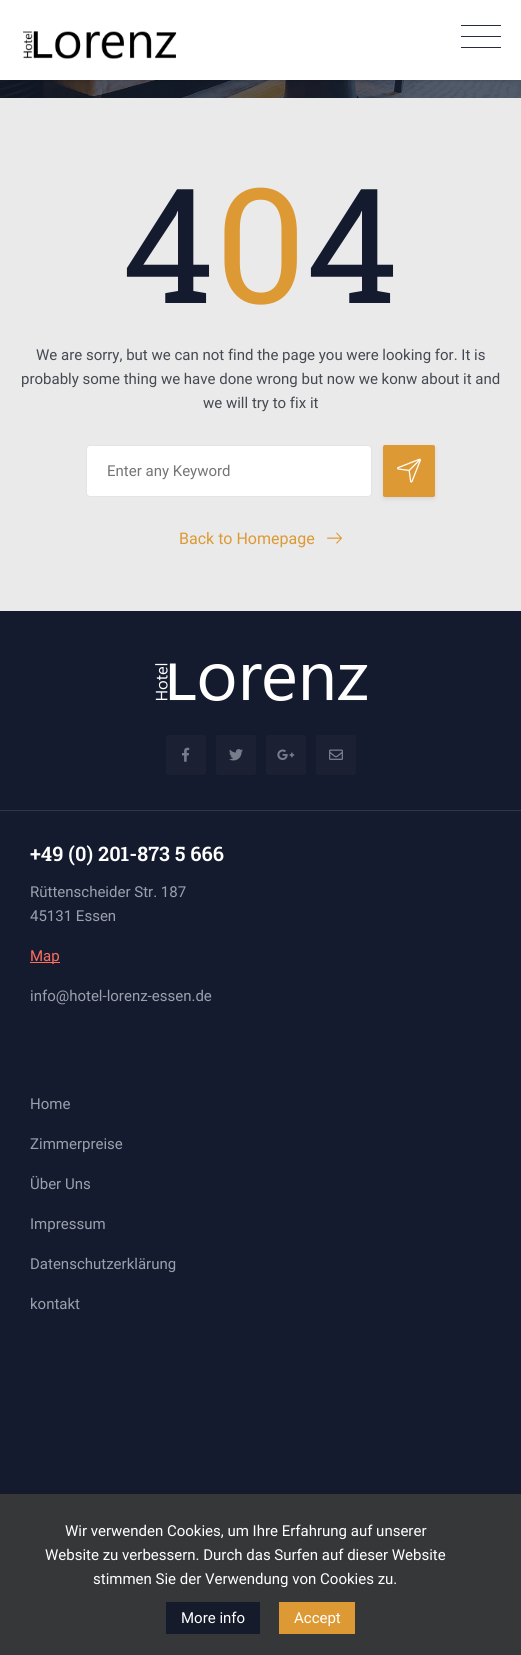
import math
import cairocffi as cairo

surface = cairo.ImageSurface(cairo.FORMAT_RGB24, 521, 1655)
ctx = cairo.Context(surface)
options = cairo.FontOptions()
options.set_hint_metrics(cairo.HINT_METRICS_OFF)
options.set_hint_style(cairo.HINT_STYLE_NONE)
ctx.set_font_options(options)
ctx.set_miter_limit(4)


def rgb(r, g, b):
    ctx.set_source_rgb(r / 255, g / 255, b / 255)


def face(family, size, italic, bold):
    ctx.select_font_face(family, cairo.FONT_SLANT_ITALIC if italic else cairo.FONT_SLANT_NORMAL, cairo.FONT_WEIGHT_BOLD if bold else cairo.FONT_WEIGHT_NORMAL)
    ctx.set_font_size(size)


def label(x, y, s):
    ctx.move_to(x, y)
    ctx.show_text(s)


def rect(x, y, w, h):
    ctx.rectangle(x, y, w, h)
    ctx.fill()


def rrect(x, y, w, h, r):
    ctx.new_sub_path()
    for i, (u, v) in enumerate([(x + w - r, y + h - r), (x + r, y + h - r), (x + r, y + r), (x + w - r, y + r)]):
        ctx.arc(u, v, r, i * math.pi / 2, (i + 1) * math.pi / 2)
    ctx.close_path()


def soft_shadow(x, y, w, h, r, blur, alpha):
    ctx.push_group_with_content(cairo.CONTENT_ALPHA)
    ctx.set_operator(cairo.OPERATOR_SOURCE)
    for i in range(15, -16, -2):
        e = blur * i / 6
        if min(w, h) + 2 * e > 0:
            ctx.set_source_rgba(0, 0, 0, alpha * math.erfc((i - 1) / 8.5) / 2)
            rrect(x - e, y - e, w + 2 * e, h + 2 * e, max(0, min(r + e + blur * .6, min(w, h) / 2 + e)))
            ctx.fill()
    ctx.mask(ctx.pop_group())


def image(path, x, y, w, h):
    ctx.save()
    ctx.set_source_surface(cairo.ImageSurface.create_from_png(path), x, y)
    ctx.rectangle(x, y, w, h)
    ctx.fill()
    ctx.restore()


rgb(234, 234, 234)
ctx.paint()
image('image1.png', 0, 80, 521, 18)
rgb(0, 0, 0)
soft_shadow(0, 1, 521, 80, 0, 1.5, 0.15)
rgb(255, 255, 255)
rect(0, 0, 521, 80)
image('image0.png', 23, 31, 154, 28)
rgb(37, 44, 65)
rect(461, 25, 40, 1)
rect(461, 36, 40, 1)
rect(461, 47, 40, 1)
face('Roboto Slab', 160, 0, 0)
rgb(21, 27, 46)
label(122, 303, '4')
rgb(221, 153, 51)
label(215, 303, '0')
rgb(21, 27, 46)
label(306, 303, '4')
face('Roboto', 15, 0, 0)
rgb(69, 73, 82)
label(36, 360, 'We are sorry, but we can not find the page you were looking for. It is')
label(21, 384, 'probably some thing we have done wrong but now we konw about it and')
label(203, 408, 'we will try to fix it')
rgb(255, 255, 255)
rrect(86.5, 445.5, 285, 51, 3.5)
ctx.fill_preserve()
rgb(228, 228, 228)
ctx.set_line_width(1)
ctx.stroke()
rgb(117, 117, 117)
label(107, 476, 'Enter any Keyword')
rgb(32, 32, 32)
soft_shadow(383, 447, 52, 52, 2, 2.5, 0.1)
rgb(221, 153, 51)
rrect(383, 445, 52, 52, 2)
ctx.fill()
image('image2.png', 397, 458, 24, 25)
face('Roboto', 16, 0, 0)
label(179, 544, 'Back to Homepage')
image('image3.png', 327, 532, 15, 12)
rgb(21, 27, 46)
rect(0, 611, 521, 883)
rgb(48, 54, 71)
rect(0, 810, 521, 1)
image('image4.png', 155, 663, 213, 38)
rgb(27, 33, 51)
rrect(166, 735, 40, 40, 3)
ctx.fill()
image('image5.png', 182, 747, 8, 15)
rrect(216, 735, 40, 40, 3)
ctx.fill()
image('image6.png', 229, 749, 14, 12)
rrect(266, 735, 40, 40, 3)
ctx.fill()
image('image7.png', 277, 749, 18, 11)
rrect(316, 735, 40, 40, 3)
ctx.fill()
image('image8.png', 329, 749, 14, 11)
face('Roboto Slab SemiBold', 20, 0, 0)
rgb(255, 255, 255)
label(30, 861, '+49 (0) 201-873 5 666')
face('Roboto', 15, 0, 0)
rgb(154, 160, 173)
label(30, 897, 'Rüttenscheider Str. 187')
label(30, 921, '45131 Essen')
rgb(255, 109, 94)
rect(30, 962, 30, 1)
label(30, 961, 'Map')
rgb(154, 160, 173)
label(30, 1001, 'info@hotel-lorenz-essen.de')
label(30, 1109, 'Home')
label(30, 1149, 'Zimmerpreise')
label(30, 1189, 'Über Uns')
label(30, 1229, 'Impressum')
label(30, 1269, 'Datenschutzerklärung')
label(30, 1309, 'kontakt')
rgb(0, 0, 0)
soft_shadow(0, 1494, 521, 161, 0, 4.5, 0.14)
rgb(54, 55, 57)
rect(0, 1494, 521, 161)
rgb(255, 255, 255)
label(65, 1536, 'Wir verwenden Cookies, um Ihre Erfahrung auf unserer')
label(45, 1560, 'Website zu verbessern. Durch das Surfen auf dieser Website')
label(93, 1584, 'stimmen Sie der Verwendung von Cookies zu.')
rgb(21, 27, 43)
rect(166, 1602, 94, 32)
rgb(255, 255, 255)
label(181, 1623, 'More info')
rgb(221, 153, 51)
rect(279, 1602, 76, 32)
rgb(255, 255, 255)
label(294, 1623, 'Accept')
surface.write_to_png('render.png')
